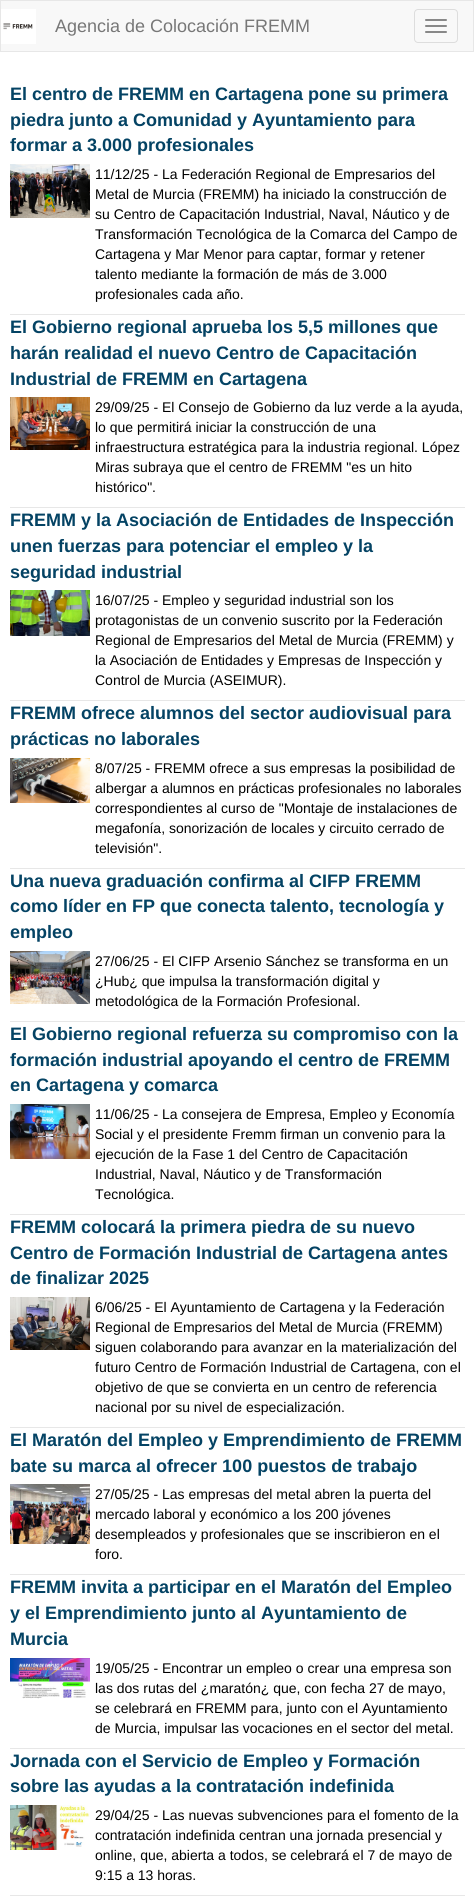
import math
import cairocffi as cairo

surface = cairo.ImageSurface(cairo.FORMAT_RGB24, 474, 1896)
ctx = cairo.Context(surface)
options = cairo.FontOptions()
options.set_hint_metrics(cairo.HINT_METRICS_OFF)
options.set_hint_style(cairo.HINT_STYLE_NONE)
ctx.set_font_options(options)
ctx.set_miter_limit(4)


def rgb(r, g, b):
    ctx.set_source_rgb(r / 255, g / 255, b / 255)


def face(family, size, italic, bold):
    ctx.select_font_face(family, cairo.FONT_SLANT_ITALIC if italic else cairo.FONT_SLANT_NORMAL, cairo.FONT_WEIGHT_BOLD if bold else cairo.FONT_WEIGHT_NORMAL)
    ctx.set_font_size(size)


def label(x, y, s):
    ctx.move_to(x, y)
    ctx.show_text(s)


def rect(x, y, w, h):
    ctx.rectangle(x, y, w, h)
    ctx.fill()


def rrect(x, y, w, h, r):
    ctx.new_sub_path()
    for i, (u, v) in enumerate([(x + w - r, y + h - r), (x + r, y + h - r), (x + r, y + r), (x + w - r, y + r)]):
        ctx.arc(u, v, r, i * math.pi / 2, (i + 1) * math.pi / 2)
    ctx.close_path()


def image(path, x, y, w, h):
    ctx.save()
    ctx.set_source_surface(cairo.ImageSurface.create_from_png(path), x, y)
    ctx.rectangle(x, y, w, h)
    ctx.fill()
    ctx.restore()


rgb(255, 255, 255)
ctx.paint()
rgb(248, 248, 248)
ctx.rectangle(0.5, 0.5, 473, 51)
ctx.fill_preserve()
rgb(231, 231, 231)
ctx.set_line_width(1)
ctx.stroke()
image('image0.png', 1, 9, 35, 35)
face('Liberation Sans', 18, 0, 0)
rgb(119, 119, 119)
label(55, 32, 'Agencia de Colocación FREMM')
rrect(414.5, 9.5, 43, 33, 3.5)
rgb(221, 221, 221)
ctx.stroke()
rgb(136, 136, 136)
rrect(425, 19, 22, 2, 1)
ctx.fill()
rrect(425, 25, 22, 2, 1)
ctx.fill()
rrect(425, 31, 22, 2, 1)
ctx.fill()
rgb(231, 231, 231)
rect(10, 314, 455, 1)
face('Liberation Sans', 18, 0, 1)
rgb(4, 67, 100)
label(10, 100, 'El centro de FREMM en Cartagena pone su primera')
label(10, 126, 'piedra junto a Comunidad y Ayuntamiento para')
label(10, 151, 'formar a 3.000 profesionales')
image('image1.png', 10, 164, 80, 54)
face('Liberation Sans', 14, 0, 0)
rgb(0, 0, 0)
label(95, 179, '11/12/25 - La Federación Regional de Empresarios del')
label(95, 199, 'Metal de Murcia (FREMM) ha iniciado la construcción de')
label(95, 219, 'su Centro de Capacitación Industrial, Naval, Náutico y de')
label(95, 239, 'Transformación Tecnológica de la Comarca del Campo de')
label(95, 259, 'Cartagena y Mar Menor para captar, formar y retener')
label(95, 279, 'talento mediante la formación de más de 3.000')
label(95, 299, 'profesionales cada año.')
rgb(231, 231, 231)
rect(10, 507, 455, 1)
face('Liberation Sans', 18, 0, 1)
rgb(4, 67, 100)
label(10, 333, 'El Gobierno regional aprueba los 5,5 millones que')
label(10, 359, 'harán realidad el nuevo Centro de Capacitación')
label(10, 385, 'Industrial de FREMM en Cartagena')
image('image2.png', 10, 397, 80, 53)
face('Liberation Sans', 14, 0, 0)
rgb(0, 0, 0)
label(95, 412, '29/09/25 - El Consejo de Gobierno da luz verde a la ayuda,')
label(95, 432, 'lo que permitirá iniciar la construcción de una')
label(95, 452, 'infraestructura estratégica para la industria regional. López')
label(95, 472, 'Miras subraya que el centro de FREMM "es un hito')
label(95, 492, 'histórico".')
rgb(231, 231, 231)
rect(10, 700, 455, 1)
face('Liberation Sans', 18, 0, 1)
rgb(4, 67, 100)
label(10, 526, 'FREMM y la Asociación de Entidades de Inspección')
label(10, 552, 'unen fuerzas para potenciar el empleo y la')
label(10, 578, 'seguridad industrial')
image('image3.png', 10, 590, 80, 46)
face('Liberation Sans', 14, 0, 0)
rgb(0, 0, 0)
label(95, 605, '16/07/25 - Empleo y seguridad industrial son los')
label(95, 625, 'protagonistas de un convenio suscrito por la Federación')
label(95, 645, 'Regional de Empresarios del Metal de Murcia (FREMM) y')
label(95, 665, 'la Asociación de Entidades y Empresas de Inspección y')
label(95, 685, 'Control de Murcia (ASEIMUR).')
rgb(231, 231, 231)
rect(10, 868, 455, 1)
face('Liberation Sans', 18, 0, 1)
rgb(4, 67, 100)
label(10, 719, 'FREMM ofrece alumnos del sector audiovisual para')
label(10, 745, 'prácticas no laborales')
image('image4.png', 10, 758, 80, 45)
face('Liberation Sans', 14, 0, 0)
rgb(0, 0, 0)
label(95, 773, '8/07/25 - FREMM ofrece a sus empresas la posibilidad de')
label(95, 793, 'albergar a alumnos en prácticas profesionales no laborales')
label(95, 813, 'correspondientes al curso de "Montaje de instalaciones de')
label(95, 833, 'megafonía, sonorización de locales y circuito cerrado de')
label(95, 853, 'televisión".')
rgb(231, 231, 231)
rect(10, 1021, 455, 1)
face('Liberation Sans', 18, 0, 1)
rgb(4, 67, 100)
label(10, 887, 'Una nueva graduación confirma al CIFP FREMM')
label(10, 912, 'como líder en FP que conecta talento, tecnología y')
label(10, 938, 'empleo')
image('image5.png', 10, 951, 80, 53)
face('Liberation Sans', 14, 0, 0)
rgb(0, 0, 0)
label(95, 966, '27/06/25 - El CIFP Arsenio Sánchez se transforma en un')
label(95, 986, '¿Hub¿ que impulsa la transformación digital y')
label(95, 1006, 'metodológica de la Formación Profesional.')
rgb(231, 231, 231)
rect(10, 1214, 455, 1)
face('Liberation Sans', 18, 0, 1)
rgb(4, 67, 100)
label(10, 1040, 'El Gobierno regional refuerza su compromiso con la')
label(10, 1066, 'formación industrial apoyando el centro de FREMM')
label(10, 1091, 'en Cartagena y comarca')
image('image6.png', 10, 1104, 80, 55)
face('Liberation Sans', 14, 0, 0)
rgb(0, 0, 0)
label(95, 1119, '11/06/25 - La consejera de Empresa, Empleo y Economía')
label(95, 1139, 'Social y el presidente Fremm firman un convenio para la')
label(95, 1159, 'ejecución de la Fase 1 del Centro de Capacitación')
label(95, 1179, 'Industrial, Naval, Náutico y de Transformación')
label(95, 1199, 'Tecnológica.')
rgb(231, 231, 231)
rect(10, 1427, 455, 1)
face('Liberation Sans', 18, 0, 1)
rgb(4, 67, 100)
label(10, 1233, 'FREMM colocará la primera piedra de su nuevo')
label(10, 1259, 'Centro de Formación Industrial de Cartagena antes')
label(10, 1284, 'de finalizar 2025')
image('image7.png', 10, 1297, 80, 53)
face('Liberation Sans', 14, 0, 0)
rgb(0, 0, 0)
label(95, 1312, '6/06/25 - El Ayuntamiento de Cartagena y la Federación')
label(95, 1332, 'Regional de Empresarios del Metal de Murcia (FREMM)')
label(95, 1352, 'siguen colaborando para avanzar en la materialización del')
label(95, 1372, 'futuro Centro de Formación Industrial de Cartagena, con el')
label(95, 1392, 'objetivo de que se convierta en un centro de referencia')
label(95, 1412, 'nacional por su nivel de especialización.')
rgb(231, 231, 231)
rect(10, 1574, 455, 1)
face('Liberation Sans', 18, 0, 1)
rgb(4, 67, 100)
label(10, 1446, 'El Maratón del Empleo y Emprendimiento de FREMM')
label(10, 1472, 'bate su marca al ofrecer 100 puestos de trabajo')
image('image8.png', 10, 1484, 80, 60)
face('Liberation Sans', 14, 0, 0)
rgb(0, 0, 0)
label(95, 1499, '27/05/25 - Las empresas del metal abren la puerta del')
label(95, 1519, 'mercado laboral y económico a los 200 jóvenes')
label(95, 1539, 'desempleados y profesionales que se inscribieron en el')
label(95, 1559, 'foro.')
rgb(231, 231, 231)
rect(10, 1748, 455, 1)
face('Liberation Sans', 18, 0, 1)
rgb(4, 67, 100)
label(10, 1593, 'FREMM invita a participar en el Maratón del Empleo')
label(10, 1619, 'y el Emprendimiento junto al Ayuntamiento de')
label(10, 1645, 'Murcia')
image('image9.png', 10, 1658, 80, 41)
face('Liberation Sans', 14, 0, 0)
rgb(0, 0, 0)
label(95, 1673, '19/05/25 - Encontrar un empleo o crear una empresa son')
label(95, 1693, 'las dos rutas del ¿maratón¿ que, con fecha 27 de mayo,')
label(95, 1713, 'se celebrará en FREMM para, junto con el Ayuntamiento')
label(95, 1733, 'de Murcia, impulsar las vocaciones en el sector del metal.')
rgb(231, 231, 231)
rect(10, 1895, 455, 1)
face('Liberation Sans', 18, 0, 1)
rgb(4, 67, 100)
label(10, 1767, 'Jornada con el Servicio de Empleo y Formación')
label(10, 1792, 'sobre las ayudas a la contratación indefinida')
image('image10.png', 10, 1805, 80, 45)
face('Liberation Sans', 14, 0, 0)
rgb(0, 0, 0)
label(95, 1820, '29/04/25 - Las nuevas subvenciones para el fomento de la')
label(95, 1840, 'contratación indefinida centran una jornada presencial y')
label(95, 1860, 'online, que, abierta a todos, se celebrará el 7 de mayo de')
label(95, 1880, '9:15 a 13 horas.')
surface.write_to_png('render.png')
